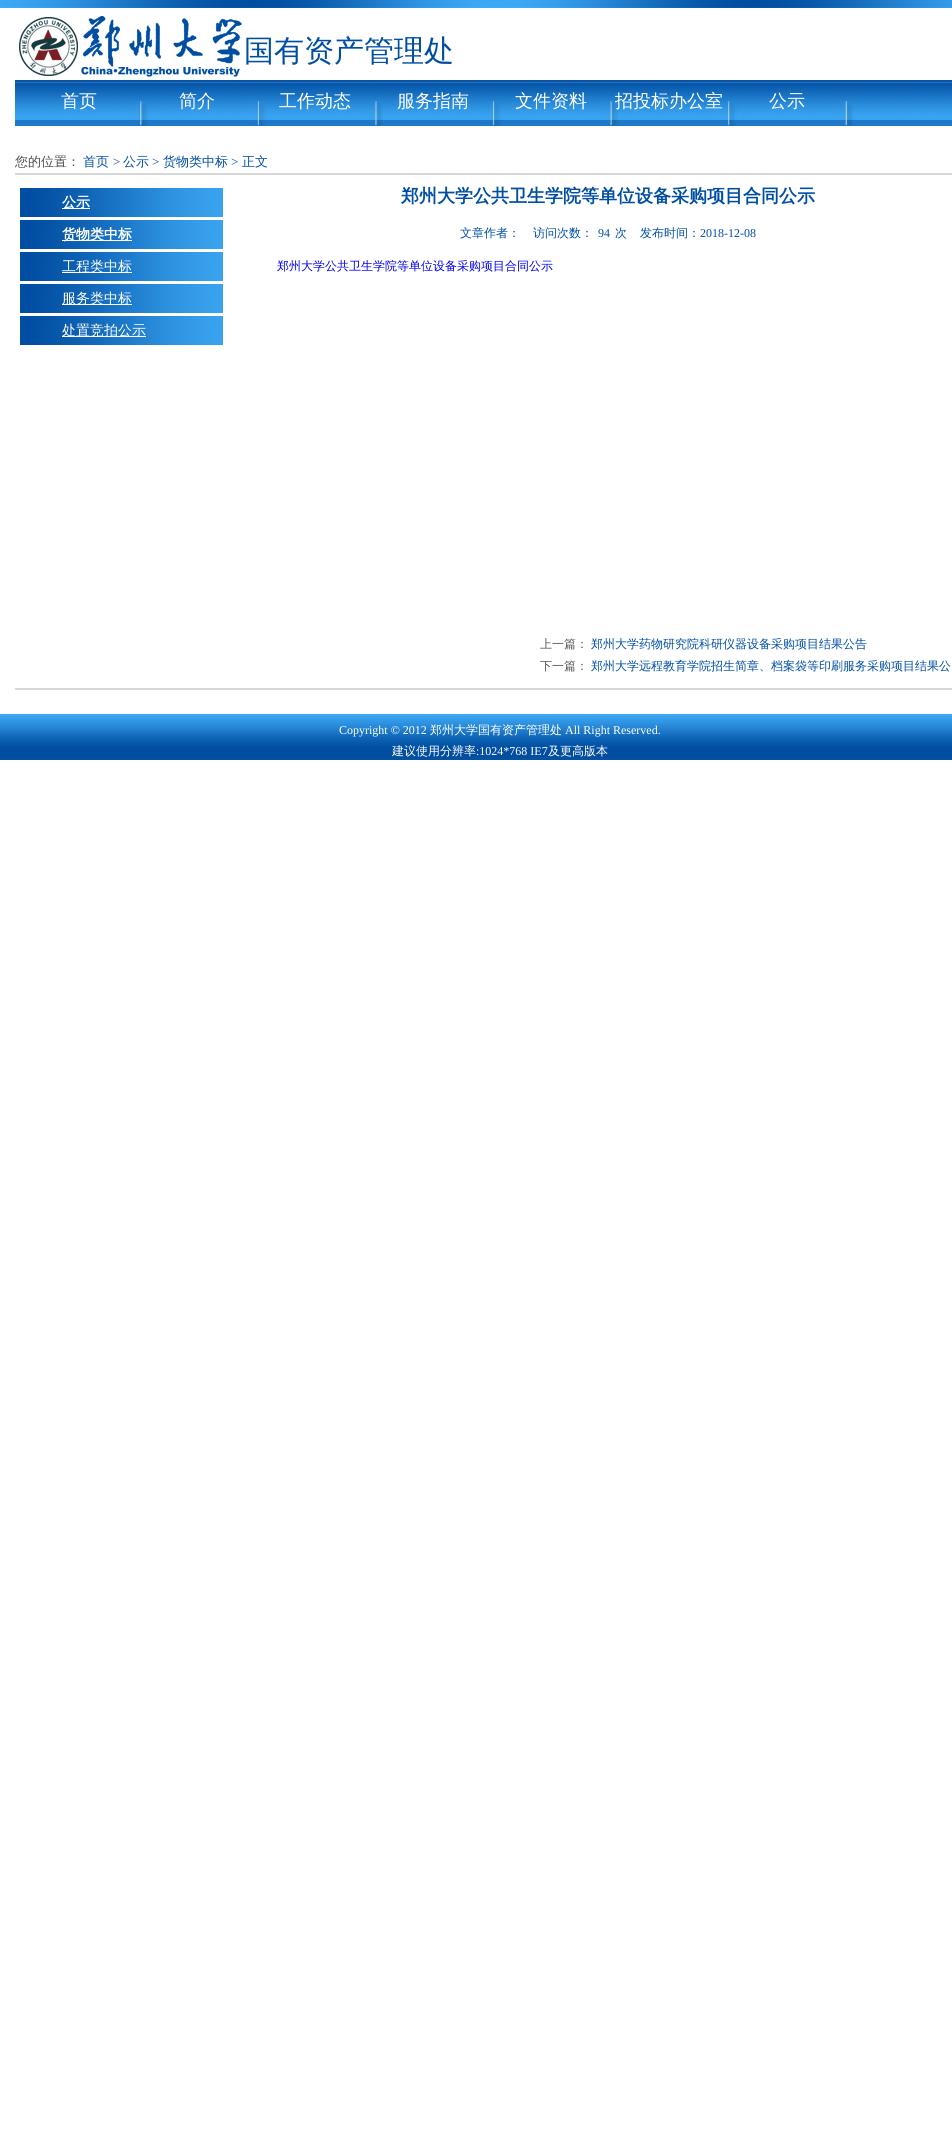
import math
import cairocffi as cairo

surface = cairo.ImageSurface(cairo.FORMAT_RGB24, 952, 2145)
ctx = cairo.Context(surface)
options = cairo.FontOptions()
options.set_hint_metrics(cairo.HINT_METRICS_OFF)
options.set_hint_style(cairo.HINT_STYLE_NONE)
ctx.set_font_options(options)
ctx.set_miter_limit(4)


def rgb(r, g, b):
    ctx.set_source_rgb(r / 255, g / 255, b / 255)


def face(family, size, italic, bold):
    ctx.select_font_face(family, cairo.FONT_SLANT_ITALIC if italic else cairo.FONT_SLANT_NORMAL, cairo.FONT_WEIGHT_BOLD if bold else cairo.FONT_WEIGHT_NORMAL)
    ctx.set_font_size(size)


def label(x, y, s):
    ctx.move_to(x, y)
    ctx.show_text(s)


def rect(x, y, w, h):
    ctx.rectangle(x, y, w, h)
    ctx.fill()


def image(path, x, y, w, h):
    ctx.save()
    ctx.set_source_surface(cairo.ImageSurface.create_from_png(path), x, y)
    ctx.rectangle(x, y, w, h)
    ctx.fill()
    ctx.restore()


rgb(255, 255, 255)
ctx.paint()
image('image0.png', 0, 0, 952, 8)
image('image1.png', 19, 16, 223, 61)
face('WenQuanYi Zen Hei Medium', 30, 0, 0)
rgb(0, 78, 162)
label(244, 61, '国有资产管理处')
image('image2.png', 15, 80, 937, 46)
face('WenQuanYi Zen Hei Medium', 18, 0, 0)
rgb(255, 255, 255)
label(61, 107, '首页')
label(179, 107, '简介')
label(279, 107, '工作动态')
label(397, 107, '服务指南')
label(515, 107, '文件资料')
label(615, 107, '招投标办公室')
label(769, 107, '公示')
rgb(216, 216, 216)
rect(15, 688, 937, 2)
rect(15, 173, 937, 2)
face('WenQuanYi Zen Hei Medium', 13, 0, 0)
rgb(76, 76, 76)
label(15, 166, '您的位置：')
rgb(0, 78, 162)
label(83, 166, '首页')
face('Liberation Serif', 13, 0, 0)
label(113, 166, '>')
face('WenQuanYi Zen Hei Medium', 13, 0, 0)
label(123, 166, '公示')
face('Liberation Serif', 13, 0, 0)
label(152, 166, '>')
face('WenQuanYi Zen Hei Medium', 13, 0, 0)
label(163, 166, '货物类中标')
face('Liberation Serif', 13, 0, 0)
label(231, 166, '>')
face('WenQuanYi Zen Hei Medium', 13, 0, 0)
label(242, 166, '正文')
image('image3.png', 20, 188, 203, 29)
rgb(255, 255, 255)
rect(62, 208, 28, 1)
face('WenQuanYi Zen Hei', 14, 0, 1)
label(62, 207, '公示')
image('image3.png', 20, 220, 203, 29)
rect(62, 240, 70, 1)
label(62, 239, '货物类中标')
image('image3.png', 20, 252, 203, 29)
rect(62, 272, 70, 1)
face('WenQuanYi Zen Hei Medium', 14, 0, 0)
label(62, 271, '工程类中标')
image('image3.png', 20, 284, 203, 29)
rect(62, 304, 70, 1)
label(62, 303, '服务类中标')
image('image3.png', 20, 316, 203, 29)
rect(62, 336, 84, 1)
label(62, 335, '处置竞拍公示')
face('WenQuanYi Zen Hei', 18, 0, 1)
rgb(0, 78, 162)
label(401, 202, '郑州大学公共卫生学院等单位设备采购项目合同公示')
face('WenQuanYi Zen Hei Medium', 12, 0, 0)
label(460, 237, '文章作者：')
label(533, 237, '访问次数：')
face('Liberation Serif', 12, 0, 0)
label(598, 237, '94')
face('WenQuanYi Zen Hei Medium', 12, 0, 0)
label(615, 237, '次')
label(640, 237, '发布时间：')
face('Liberation Serif', 12, 0, 0)
label(700, 237, '2018-12-08')
face('WenQuanYi Zen Hei Medium', 12, 0, 0)
rgb(0, 0, 238)
label(277, 270, '郑州大学公共卫生学院等单位设备采购项目合同公示')
rgb(85, 85, 85)
label(540, 648, '上一篇：')
rgb(0, 78, 162)
label(591, 648, '郑州大学药物研究院科研仪器设备采购项目结果公告')
rgb(85, 85, 85)
label(540, 670, '下一篇：')
rgb(0, 78, 162)
label(591, 670, '郑州大学远程教育学院招生简章、档案袋等印刷服务采购项目结果公')
image('image4.png', 0, 714, 952, 46)
face('Liberation Serif', 12, 0, 0)
rgb(255, 255, 255)
label(339, 734, 'Copyright © 2012')
face('WenQuanYi Zen Hei Medium', 12, 0, 0)
label(430, 734, '郑州大学国有资产管理处')
face('Liberation Serif', 12, 0, 0)
label(565, 734, 'All Right Reserved.')
face('WenQuanYi Zen Hei Medium', 12, 0, 0)
label(392, 755, '建议使用分辨率')
face('Liberation Serif', 12, 0, 0)
label(476, 755, ':1024*768 IE7')
face('WenQuanYi Zen Hei Medium', 12, 0, 0)
label(548, 755, '及更高版本')
surface.write_to_png('render.png')
